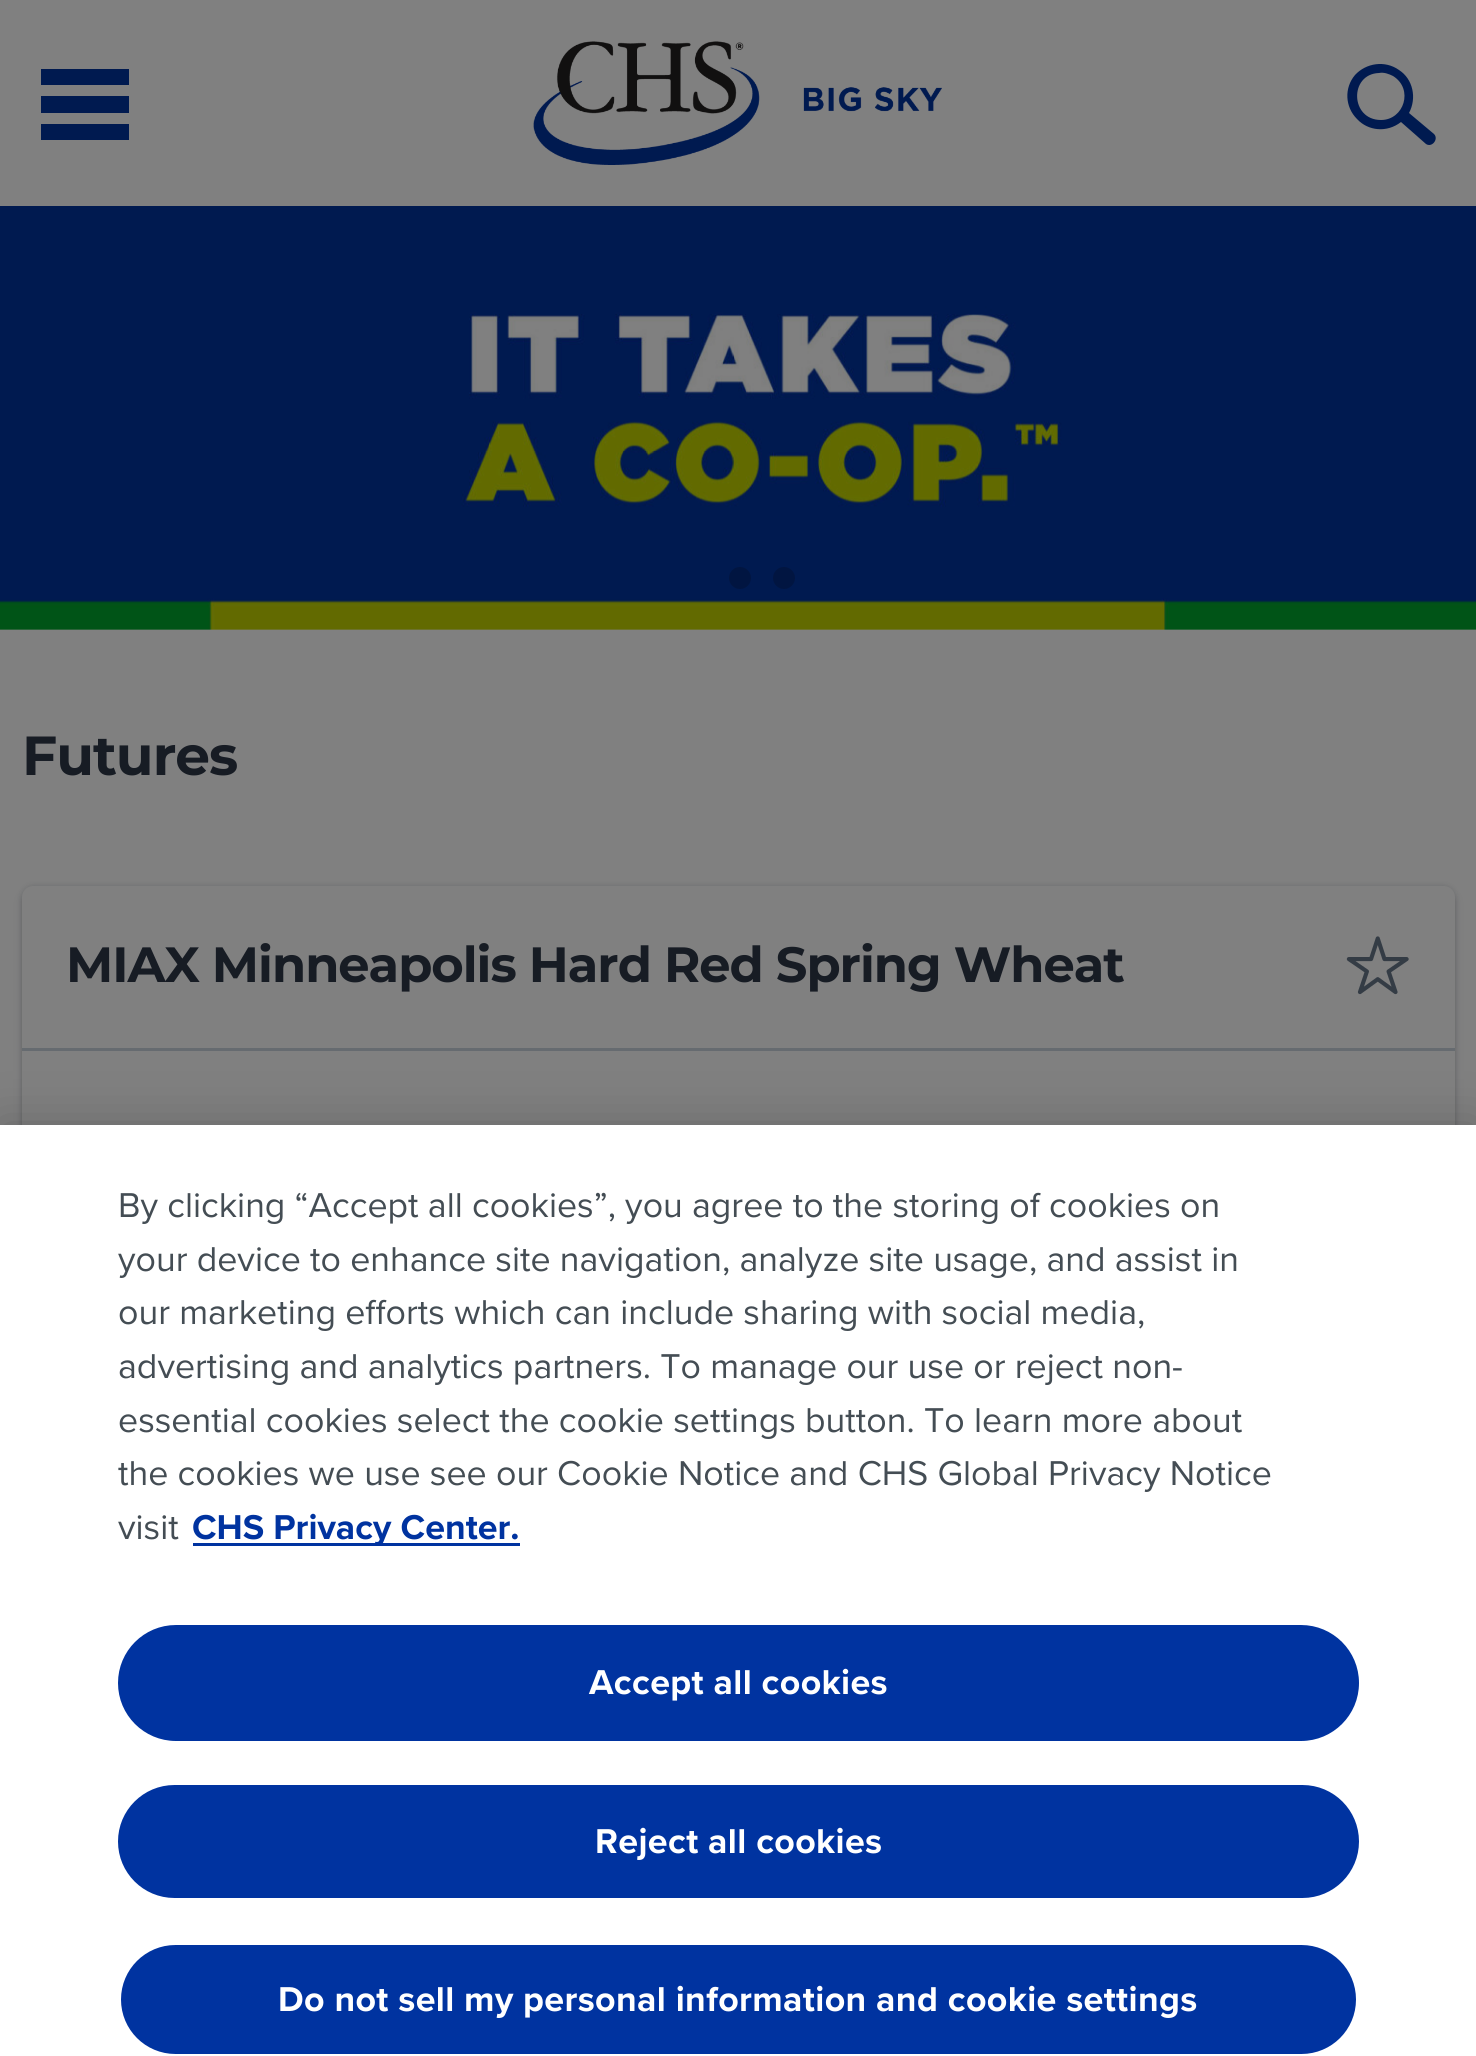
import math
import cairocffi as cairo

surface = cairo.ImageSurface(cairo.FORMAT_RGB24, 1476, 2056)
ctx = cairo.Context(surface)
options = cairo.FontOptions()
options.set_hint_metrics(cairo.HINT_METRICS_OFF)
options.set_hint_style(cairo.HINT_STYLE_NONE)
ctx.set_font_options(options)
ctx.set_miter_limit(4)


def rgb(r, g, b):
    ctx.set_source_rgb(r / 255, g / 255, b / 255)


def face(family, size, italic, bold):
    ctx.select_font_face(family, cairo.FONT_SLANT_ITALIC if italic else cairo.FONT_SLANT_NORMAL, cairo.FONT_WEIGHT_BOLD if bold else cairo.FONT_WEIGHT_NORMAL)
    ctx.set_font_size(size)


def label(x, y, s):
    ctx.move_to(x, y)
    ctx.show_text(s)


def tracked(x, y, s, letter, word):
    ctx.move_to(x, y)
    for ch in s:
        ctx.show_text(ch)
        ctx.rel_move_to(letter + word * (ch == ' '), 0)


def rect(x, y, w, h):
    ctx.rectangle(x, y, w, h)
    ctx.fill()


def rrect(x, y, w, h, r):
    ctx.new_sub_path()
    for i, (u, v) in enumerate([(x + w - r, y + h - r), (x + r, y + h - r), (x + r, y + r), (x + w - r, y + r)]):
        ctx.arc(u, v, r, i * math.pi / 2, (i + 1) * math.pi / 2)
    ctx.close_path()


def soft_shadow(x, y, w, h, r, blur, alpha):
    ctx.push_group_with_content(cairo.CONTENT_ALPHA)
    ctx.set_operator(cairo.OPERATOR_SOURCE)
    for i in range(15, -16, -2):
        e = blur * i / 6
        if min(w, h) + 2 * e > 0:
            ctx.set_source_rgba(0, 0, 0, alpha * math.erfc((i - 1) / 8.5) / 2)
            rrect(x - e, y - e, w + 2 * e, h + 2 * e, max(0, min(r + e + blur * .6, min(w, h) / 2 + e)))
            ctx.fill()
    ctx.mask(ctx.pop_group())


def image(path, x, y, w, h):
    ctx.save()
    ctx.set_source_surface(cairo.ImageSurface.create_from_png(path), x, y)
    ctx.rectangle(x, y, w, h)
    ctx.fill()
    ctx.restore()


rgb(128, 128, 128)
ctx.paint()
rgb(0, 26, 80)
ctx.new_path()
ctx.move_to(129, 85)
ctx.line_to(41, 85)
ctx.line_to(41, 69)
ctx.line_to(129, 69)
ctx.close_path()
ctx.move_to(129, 96)
ctx.line_to(41, 96)
ctx.line_to(41, 113)
ctx.line_to(129, 113)
ctx.close_path()
ctx.move_to(129, 124)
ctx.line_to(41, 124)
ctx.line_to(41, 140)
ctx.line_to(129, 140)
ctx.close_path()
ctx.fill()
image('image0.png', 533, 41, 409, 124)
ctx.new_path()
ctx.move_to(1434, 134)
ctx.line_to(1409, 113)
ctx.curve_to(1417, 98, 1413, 79, 1399, 70)
ctx.curve_to(1385, 60, 1366, 63, 1355, 75)
ctx.curve_to(1344, 88, 1345, 107, 1357, 119)
ctx.curve_to(1368, 131, 1387, 133, 1401, 122)
ctx.line_to(1426, 144)
ctx.curve_to(1432, 148, 1439, 139, 1434, 134)
ctx.close_path()
ctx.move_to(1381, 120)
ctx.curve_to(1350, 120, 1349, 74, 1379, 73)
ctx.curve_to(1384, 72, 1389, 74, 1393, 76)
ctx.curve_to(1414, 89, 1404, 120, 1381, 120)
ctx.close_path()
ctx.fill()
image('image1.png', 0, 206, 1476, 424)
rgb(1, 21, 65)
ctx.arc(740, 578, 11, 0, 2 * math.pi)
ctx.fill()
ctx.arc(784, 578, 11, 0, 2 * math.pi)
ctx.fill()
face('Montserrat', 55, 0, 1)
rgb(23, 28, 36)
tracked(22, 775, 'Futures', -1, 0)
rgb(23, 28, 36)
soft_shadow(22, 886, 1433, 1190, 11, 3, 0.15)
soft_shadow(22, 891, 1433, 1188, 11, 4, 0.2)
rgb(128, 128, 128)
ctx.new_path()
ctx.move_to(33, 886)
ctx.line_to(1444, 886)
ctx.curve_to(1450, 886, 1455, 891, 1455, 897)
ctx.line_to(1455, 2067)
ctx.line_to(22, 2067)
ctx.line_to(22, 897)
ctx.curve_to(22, 891, 27, 886, 33, 886)
ctx.close_path()
ctx.fill()
rgb(102, 107, 112)
rect(22, 1048, 1433, 3)
face('Montserrat', 49.5, 0, 1)
rgb(23, 28, 36)
tracked(66, 982, 'MIAX Minneapolis Hard Red Spring Wheat', -1, 0)
image('image2.png', 1346, 936, 63, 59)
rgb(0, 0, 0)
soft_shadow(0, 1125, 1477, 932, 0, 25, 0.2)
rgb(255, 255, 255)
rect(0, 1125, 1476, 931)
face('Proxima Nova', 35.75, 0, 0)
rgb(68, 77, 84)
label(118, 1217, 'By clicking “Accept all cookies”, you agree to the storing of cookies on')
label(118, 1271, 'your device to enhance site navigation, analyze site usage, and assist in')
label(118, 1324, 'our marketing efforts which can include sharing with social media,')
label(118, 1378, 'advertising and analytics partners. To manage our use or reject non-')
label(118, 1432, 'essential cookies select the cookie settings button. To learn more about')
label(118, 1485, 'the cookies we use see our Cookie Notice and CHS Global Privacy Notice')
label(118, 1539, 'visit')
rgb(0, 51, 160)
rect(193, 1543, 327, 3)
face('Proxima Nova', 35.75, 0, 1)
label(192, 1539, 'CHS Privacy Center.')
rrect(119.5, 1626.5, 1238, 113, 56.5)
ctx.fill_preserve()
ctx.set_line_width(3)
ctx.stroke()
rgb(255, 255, 255)
tracked(589, 1694, 'Accept all cookies', 0.35, 0)
rgb(0, 51, 160)
rrect(119.5, 1786.5, 1238, 110, 55)
ctx.fill_preserve()
ctx.stroke()
rgb(255, 255, 255)
tracked(595, 1853, 'Reject all cookies', 0.35, 0)
rgb(0, 51, 160)
rrect(119.5, 1943.5, 1238, 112, 56)
ctx.fill_preserve()
rgb(255, 255, 255)
ctx.stroke()
tracked(278, 2011, 'Do not sell my personal information and cookie settings', 0.35, 0)
surface.write_to_png('render.png')
